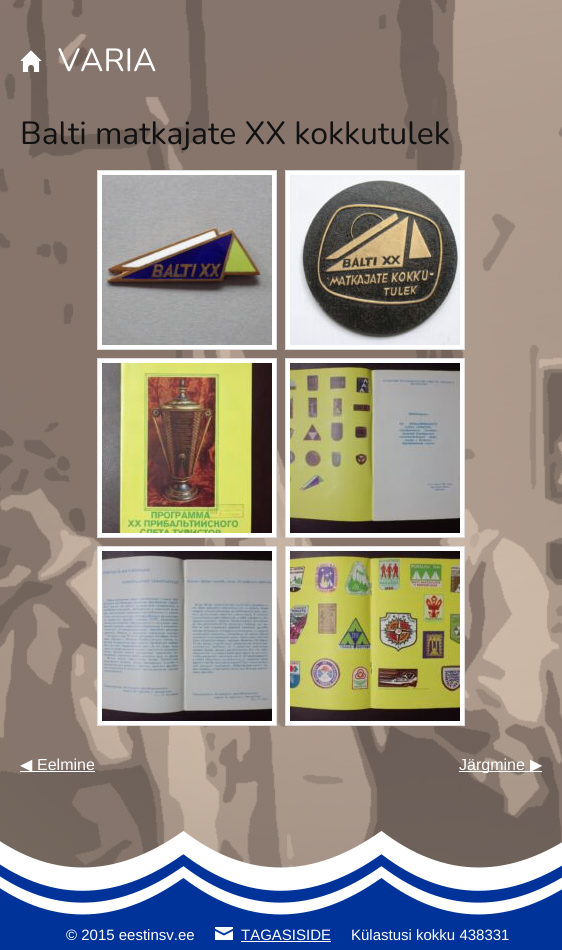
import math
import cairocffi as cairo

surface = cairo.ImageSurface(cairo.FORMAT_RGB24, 562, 950)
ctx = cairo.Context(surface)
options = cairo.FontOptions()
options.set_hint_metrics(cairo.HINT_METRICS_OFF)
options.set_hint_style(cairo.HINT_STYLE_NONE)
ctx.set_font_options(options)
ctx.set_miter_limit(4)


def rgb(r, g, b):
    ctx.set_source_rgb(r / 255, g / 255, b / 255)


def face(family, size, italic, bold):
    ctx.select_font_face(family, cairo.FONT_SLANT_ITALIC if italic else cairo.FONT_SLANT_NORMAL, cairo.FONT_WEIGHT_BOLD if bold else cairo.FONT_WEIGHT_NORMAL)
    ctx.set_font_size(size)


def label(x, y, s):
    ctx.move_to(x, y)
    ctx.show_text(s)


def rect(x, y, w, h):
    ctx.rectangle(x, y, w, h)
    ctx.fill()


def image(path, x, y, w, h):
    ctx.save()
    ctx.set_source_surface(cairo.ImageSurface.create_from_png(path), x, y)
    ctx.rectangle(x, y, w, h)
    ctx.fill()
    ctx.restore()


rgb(255, 255, 255)
ctx.paint()
image('image0.png', 0, 0, 562, 868)
image('image1.png', 20, 50, 22, 22)
face('Nunito ExtraLight', 32, 0, 0)
rgb(255, 255, 255)
label(58, 71, 'VARIA')
rgb(17, 17, 17)
label(20, 144, 'Balti matkajate XX kokkutulek')
ctx.rectangle(97.5, 170.5, 179, 179)
rgb(221, 221, 221)
ctx.set_line_width(1)
ctx.stroke()
rgb(255, 255, 255)
rect(98, 171, 178, 178)
image('image2.png', 102, 175, 170, 170)
ctx.rectangle(285.5, 170.5, 179, 179)
rgb(221, 221, 221)
ctx.stroke()
rgb(255, 255, 255)
rect(286, 171, 178, 178)
image('image3.png', 290, 175, 170, 170)
ctx.rectangle(97.5, 358.5, 179, 179)
rgb(221, 221, 221)
ctx.stroke()
rgb(255, 255, 255)
rect(98, 359, 178, 178)
image('image4.png', 102, 363, 170, 170)
ctx.rectangle(285.5, 358.5, 179, 179)
rgb(221, 221, 221)
ctx.stroke()
rgb(255, 255, 255)
rect(286, 359, 178, 178)
image('image5.png', 290, 363, 170, 170)
ctx.rectangle(97.5, 546.5, 179, 179)
rgb(221, 221, 221)
ctx.stroke()
rgb(255, 255, 255)
rect(98, 547, 178, 178)
image('image6.png', 102, 551, 170, 170)
ctx.rectangle(285.5, 546.5, 179, 179)
rgb(221, 221, 221)
ctx.stroke()
rgb(255, 255, 255)
rect(286, 547, 178, 178)
image('image7.png', 290, 551, 170, 170)
rect(20, 771, 75, 1)
face('DejaVu Sans', 16, 0, 0)
label(20, 770, '◀')
face('Liberation Sans', 16, 0, 0)
label(37, 770, 'Eelmine')
rect(459, 771, 83, 1)
label(459, 770, 'Järgmine')
face('DejaVu Sans', 16, 0, 0)
label(530, 770, '▶')
image('image8.png', 0, 831, 562, 119)
face('Liberation Sans', 15, 0, 0)
label(66, 940, '© 2015 eestinsv.ee')
image('image9.png', 215, 927, 18, 13)
label(241, 940, 'TAGASISIDE')
rect(241, 941, 90, 1)
label(351, 940, 'Külastusi kokku 438331')
surface.write_to_png('render.png')
